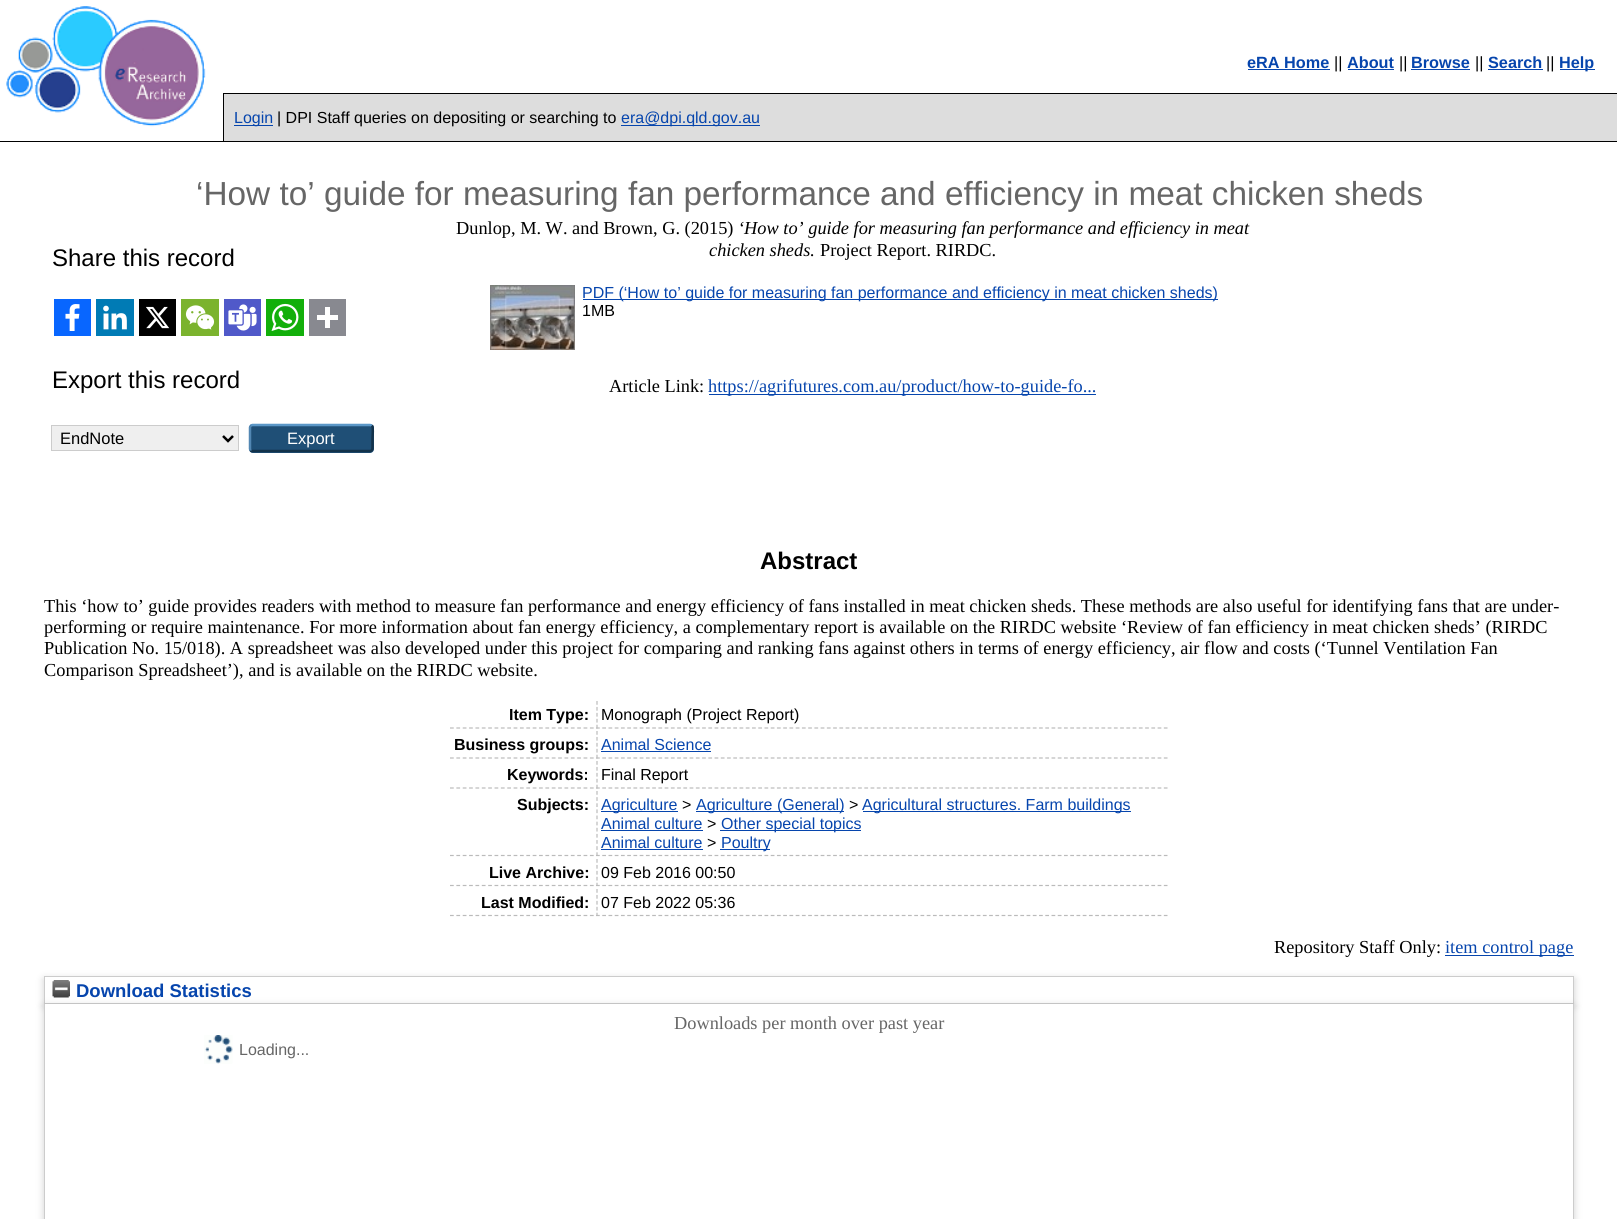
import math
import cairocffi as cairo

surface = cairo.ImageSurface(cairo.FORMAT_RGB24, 1617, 1219)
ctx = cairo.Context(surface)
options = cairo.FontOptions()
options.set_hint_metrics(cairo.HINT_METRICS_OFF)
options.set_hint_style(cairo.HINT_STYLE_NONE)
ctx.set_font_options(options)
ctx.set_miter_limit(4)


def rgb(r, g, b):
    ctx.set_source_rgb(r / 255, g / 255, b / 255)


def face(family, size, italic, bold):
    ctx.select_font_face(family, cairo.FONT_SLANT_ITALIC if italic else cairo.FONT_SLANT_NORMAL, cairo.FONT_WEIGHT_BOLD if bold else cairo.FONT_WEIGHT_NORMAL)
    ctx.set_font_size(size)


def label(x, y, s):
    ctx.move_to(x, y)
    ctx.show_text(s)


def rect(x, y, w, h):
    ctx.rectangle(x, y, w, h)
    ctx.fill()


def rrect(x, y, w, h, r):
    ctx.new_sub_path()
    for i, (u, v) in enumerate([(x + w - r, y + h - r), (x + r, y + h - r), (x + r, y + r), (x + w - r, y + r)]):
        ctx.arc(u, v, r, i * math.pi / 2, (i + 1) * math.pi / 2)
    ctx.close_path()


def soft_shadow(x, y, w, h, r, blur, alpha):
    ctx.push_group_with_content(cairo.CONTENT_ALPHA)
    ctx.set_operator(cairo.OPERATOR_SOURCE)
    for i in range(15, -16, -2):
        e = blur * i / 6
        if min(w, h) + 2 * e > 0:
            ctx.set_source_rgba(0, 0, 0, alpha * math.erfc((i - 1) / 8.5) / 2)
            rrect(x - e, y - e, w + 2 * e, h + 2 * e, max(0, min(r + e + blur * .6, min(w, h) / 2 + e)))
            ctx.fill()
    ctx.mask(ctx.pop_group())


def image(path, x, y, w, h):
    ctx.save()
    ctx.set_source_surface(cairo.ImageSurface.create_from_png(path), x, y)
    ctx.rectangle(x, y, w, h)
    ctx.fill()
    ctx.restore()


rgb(255, 255, 255)
ctx.paint()
rgb(0, 0, 0)
rect(0, 141, 1617, 1)
image('image0.png', 6, 6, 200, 121)
face('Liberation Sans', 16.25, 0, 1)
rgb(6, 69, 173)
label(1247, 68, 'eRA Home')
rect(1248, 69, 82, 1)
face('Liberation Sans', 16.25, 0, 0)
rgb(0, 0, 0)
label(1334, 68, '||')
face('Liberation Sans', 16.25, 0, 1)
rgb(6, 69, 173)
label(1347, 68, 'About')
rect(1348, 69, 46, 1)
face('Liberation Sans', 16.25, 0, 0)
rgb(0, 0, 0)
label(1399, 68, '||')
face('Liberation Sans', 16.25, 0, 1)
rgb(6, 69, 173)
label(1411, 68, 'Browse')
rect(1411, 69, 59, 1)
face('Liberation Sans', 16.25, 0, 0)
rgb(0, 0, 0)
label(1475, 68, '||')
face('Liberation Sans', 16.25, 0, 1)
rgb(6, 69, 173)
label(1488, 68, 'Search')
rect(1488, 69, 55, 1)
face('Liberation Sans', 16.25, 0, 0)
rgb(0, 0, 0)
label(1546, 68, '||')
rgb(6, 69, 173)
rect(1560, 69, 35, 1)
face('Liberation Sans', 16.25, 0, 1)
label(1559, 68, 'Help')
rgb(221, 221, 221)
rect(224, 94, 1393, 47)
rgb(0, 0, 0)
rect(223, 93, 1394, 1)
rect(223, 93, 1, 48)
rgb(6, 69, 173)
rect(234, 125, 39, 1)
face('Liberation Sans', 16, 0, 0)
label(234, 123, 'Login')
rgb(0, 0, 0)
label(277, 123, '| DPI Staff queries on depositing or searching to')
rgb(6, 69, 173)
rect(621, 125, 139, 1)
label(621, 123, 'era@dpi.qld.gov.au')
face('Liberation Sans', 33.35, 0, 0)
rgb(102, 102, 102)
label(196, 205, '‘How to’ guide for measuring fan performance and efficiency in meat chicken sheds')
face('Liberation Serif', 18.33, 0, 0)
rgb(0, 0, 0)
label(456, 234, 'Dunlop, M. W. and Brown, G. (2015)')
face('Liberation Serif', 18.33, 1, 0)
label(738, 234, '‘How to’ guide for measuring fan performance and efficiency in meat')
label(709, 256, 'chicken sheds.')
face('Liberation Serif', 18.33, 0, 0)
label(820, 256, 'Project Report. RIRDC.')
image('image1.png', 490, 285, 85, 65)
rgb(6, 69, 173)
rect(583, 299, 635, 1)
face('Liberation Sans', 16, 0, 0)
label(582, 298, 'PDF (‘How to’ guide for measuring fan performance and efficiency in meat chicken sheds)')
rgb(0, 0, 0)
label(582, 316, '1MB')
face('Liberation Serif', 18.33, 0, 0)
label(609, 392, 'Article Link:')
rgb(6, 69, 173)
rect(709, 394, 387, 1)
label(708, 392, 'https://agrifutures.com.au/product/how-to-guide-fo...')
face('Liberation Sans', 24, 0, 1)
rgb(0, 0, 0)
label(760, 569, 'Abstract')
face('Liberation Serif', 18.33, 0, 0)
label(44, 612, 'This ‘how to’ guide provides readers with method to measure fan performance and energy efficiency of fans installed in meat chicken sheds. These methods are also useful for identifying fans that are under-')
label(44, 633, 'performing or require maintenance. For more information about fan energy efficiency, a complementary report is available on the RIRDC website ‘Review of fan efficiency in meat chicken sheds’ (RIRDC')
label(44, 654, 'Publication No. 15/018). A spreadsheet was also developed under this project for comparing and ranking fans against others in terms of energy efficiency, air flow and costs (‘Tunnel Ventilation Fan')
label(44, 676, 'Comparison Spreadsheet’), and is available on the RIRDC website.')
ctx.new_path()
ctx.move_to(450, 728)
ctx.line_to(594, 728)
rgb(187, 187, 187)
ctx.set_line_width(1.2)
ctx.set_dash([3.75, 2.61])
ctx.stroke()
face('Liberation Sans', 16, 0, 1)
rgb(0, 0, 0)
label(509, 720, 'Item Type:')
ctx.new_path()
ctx.move_to(596, 728)
ctx.line_to(1167.5, 728)
rgb(187, 187, 187)
ctx.set_dash([3.75, 2.49])
ctx.stroke()
ctx.new_path()
ctx.move_to(597, 701)
ctx.line_to(597, 729)
ctx.set_dash([3.75, 2.19])
ctx.stroke()
face('Liberation Sans', 16, 0, 0)
rgb(0, 0, 0)
label(601, 720, 'Monograph (Project Report)')
ctx.new_path()
ctx.move_to(450, 758)
ctx.line_to(594, 758)
rgb(187, 187, 187)
ctx.set_dash([3.75, 2.61])
ctx.stroke()
face('Liberation Sans', 16, 0, 1)
rgb(0, 0, 0)
label(454, 750, 'Business groups:')
ctx.new_path()
ctx.move_to(596, 758)
ctx.line_to(1167.5, 758)
rgb(187, 187, 187)
ctx.set_dash([3.75, 2.49])
ctx.stroke()
ctx.new_path()
ctx.move_to(597, 731)
ctx.line_to(597, 759)
ctx.set_dash([3.75, 2.19])
ctx.stroke()
face('Liberation Sans', 16, 0, 0)
rgb(6, 69, 173)
label(601, 750, 'Animal Science')
rect(601, 751, 110, 1)
ctx.new_path()
ctx.move_to(450, 788)
ctx.line_to(594, 788)
rgb(187, 187, 187)
ctx.set_dash([3.75, 2.61])
ctx.stroke()
face('Liberation Sans', 16, 0, 1)
rgb(0, 0, 0)
label(507, 780, 'Keywords:')
ctx.new_path()
ctx.move_to(596, 788)
ctx.line_to(1167.5, 788)
rgb(187, 187, 187)
ctx.set_dash([3.75, 2.49])
ctx.stroke()
ctx.new_path()
ctx.move_to(597, 761)
ctx.line_to(597, 789)
ctx.set_dash([3.75, 2.19])
ctx.stroke()
face('Liberation Sans', 16, 0, 0)
rgb(0, 0, 0)
label(601, 780, 'Final Report')
ctx.new_path()
ctx.move_to(450, 855.5)
ctx.line_to(594, 855.5)
rgb(187, 187, 187)
ctx.set_dash([3.75, 2.61])
ctx.stroke()
face('Liberation Sans', 16, 0, 1)
rgb(0, 0, 0)
label(517, 810, 'Subjects:')
ctx.new_path()
ctx.move_to(596, 855.5)
ctx.line_to(1167.5, 855.5)
rgb(187, 187, 187)
ctx.set_dash([3.75, 2.49])
ctx.stroke()
ctx.new_path()
ctx.move_to(597, 791)
ctx.line_to(597, 856)
ctx.set_dash([3.75, 2.38])
ctx.stroke()
rgb(6, 69, 173)
rect(601, 811, 77, 1)
face('Liberation Sans', 16, 0, 0)
label(601, 810, 'Agriculture')
rgb(0, 0, 0)
label(682, 810, '>')
rgb(6, 69, 173)
rect(696, 811, 148, 1)
label(696, 810, 'Agriculture (General)')
rgb(0, 0, 0)
label(849, 810, '>')
rgb(6, 69, 173)
rect(863, 811, 268, 1)
label(862, 810, 'Agricultural structures. Farm buildings')
label(601, 829, 'Animal culture')
rect(601, 830, 102, 1)
rgb(0, 0, 0)
label(707, 829, '>')
rgb(6, 69, 173)
rect(720, 830, 141, 1)
label(721, 829, 'Other special topics')
label(601, 848, 'Animal culture')
rect(601, 849, 102, 1)
rgb(0, 0, 0)
label(707, 848, '>')
rgb(6, 69, 173)
rect(720, 849, 50, 1)
label(721, 848, 'Poultry')
ctx.new_path()
ctx.move_to(450, 885.5)
ctx.line_to(594, 885.5)
rgb(187, 187, 187)
ctx.set_dash([3.75, 2.61])
ctx.stroke()
face('Liberation Sans', 16, 0, 1)
rgb(0, 0, 0)
label(489, 878, 'Live Archive:')
ctx.new_path()
ctx.move_to(596, 885.5)
ctx.line_to(1167.5, 885.5)
rgb(187, 187, 187)
ctx.set_dash([3.75, 2.49])
ctx.stroke()
ctx.new_path()
ctx.move_to(597, 859)
ctx.line_to(597, 886)
ctx.set_dash([3.75, 2.19])
ctx.stroke()
face('Liberation Sans', 16, 0, 0)
rgb(0, 0, 0)
label(601, 878, '09 Feb 2016 00:50')
ctx.new_path()
ctx.move_to(450, 915.5)
ctx.line_to(594, 915.5)
rgb(187, 187, 187)
ctx.set_dash([3.75, 2.61])
ctx.stroke()
face('Liberation Sans', 16, 0, 1)
rgb(0, 0, 0)
label(481, 908, 'Last Modified:')
ctx.new_path()
ctx.move_to(596, 915.5)
ctx.line_to(1167.5, 915.5)
rgb(187, 187, 187)
ctx.set_dash([3.75, 2.49])
ctx.stroke()
ctx.new_path()
ctx.move_to(597, 889)
ctx.line_to(597, 916)
ctx.set_dash([3.75, 2.19])
ctx.stroke()
face('Liberation Sans', 16, 0, 0)
rgb(0, 0, 0)
label(601, 908, '07 Feb 2022 05:36')
face('Liberation Serif', 18.33, 0, 0)
label(1274, 953, 'Repository Staff Only:')
rgb(6, 69, 173)
rect(1445, 955, 129, 1)
label(1445, 953, 'item control page')
face('Liberation Sans', 24, 0, 0)
rgb(0, 0, 0)
label(52, 266, 'Share this record')
rgb(8, 102, 255)
rect(54, 299, 37, 37)
rgb(0, 123, 181)
rect(96, 299, 38, 37)
rgb(0, 0, 0)
rect(139, 299, 37, 37)
rgb(123, 179, 46)
rect(181, 299, 38, 37)
rgb(80, 89, 201)
rect(224, 299, 37, 37)
rgb(18, 175, 10)
rect(266, 299, 38, 37)
rgb(136, 137, 144)
rect(309, 299, 37, 37)
image('image2.png', 65, 304, 15, 27)
image('image3.png', 103, 305, 24, 25)
image('image4.png', 146, 306, 24, 23)
image('image5.png', 185, 305, 30, 25)
image('image6.png', 228, 304, 29, 27)
image('image7.png', 271, 303, 28, 28)
rgb(255, 255, 255)
rect(325, 307, 5, 21)
rect(317, 315, 21, 5)
rgb(0, 0, 0)
label(52, 388, 'Export this record')
rgb(239, 239, 239)
ctx.rectangle(51.5, 425.5, 187, 25)
ctx.fill_preserve()
rgb(204, 204, 204)
ctx.set_line_width(1)
ctx.set_dash([])
ctx.stroke()
ctx.new_path()
ctx.move_to(223, 436)
ctx.line_to(228, 441)
ctx.line_to(233, 436)
rgb(0, 0, 0)
ctx.set_line_width(2.5)
ctx.stroke()
face('Liberation Sans', 16.5, 0, 0)
label(60, 444, 'EndNote')
rgb(31, 79, 118)
rrect(249, 424, 125, 29, 4)
ctx.fill()
ctx.new_path()
ctx.move_to(250.5, 425.5)
ctx.line_to(252.5, 425)
ctx.line_to(350.5, 425)
ctx.line_to(370, 425)
ctx.line_to(372, 425.5)
rgb(91, 151, 199)
ctx.stroke()
ctx.new_path()
ctx.move_to(372, 425.5)
ctx.curve_to(373.5, 427.5, 372.5, 435.5, 372.5, 438)
ctx.line_to(372.5, 445)
ctx.curve_to(372.5, 447, 373, 451, 370, 451)
ctx.line_to(291.5, 451)
ctx.line_to(251.5, 451)
ctx.line_to(250.5, 450.5)
rgb(19, 50, 74)
ctx.stroke()
ctx.new_path()
ctx.move_to(250.5, 450.5)
ctx.curve_to(250.5, 450, 250, 449.5, 250, 449)
ctx.line_to(250, 427.5)
ctx.curve_to(250, 427, 250.5, 426, 250.5, 425.5)
rgb(82, 135, 179)
ctx.stroke()
rgb(255, 255, 255)
label(287, 444, 'Export')
rgb(100, 100, 100)
soft_shadow(44, 979, 1530, 27, 0, 4, 0.3)
rgb(255, 255, 255)
ctx.rectangle(44.5, 976.5, 1529, 27)
ctx.fill_preserve()
rgb(204, 204, 204)
ctx.set_line_width(1)
ctx.stroke()
rgb(100, 100, 100)
soft_shadow(44, 1006, 1530, 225, 0, 4, 0.3)
image('image8.png', 52, 980, 18, 18)
face('Liberation Sans', 18.5, 0, 1)
rgb(6, 69, 173)
label(76, 997, 'Download Statistics')
rgb(255, 255, 255)
rect(45, 1004, 1528, 215)
rgb(204, 204, 204)
rect(1573, 1004, 1, 215)
rect(44, 1004, 1, 215)
face('Liberation Serif', 18.33, 0, 0)
rgb(102, 102, 102)
label(674, 1029, 'Downloads per month over past year')
image('image9.png', 204, 1035, 29, 29)
face('Liberation Sans', 16, 0, 0)
label(239, 1055, 'Loading...')
surface.write_to_png('render.png')
